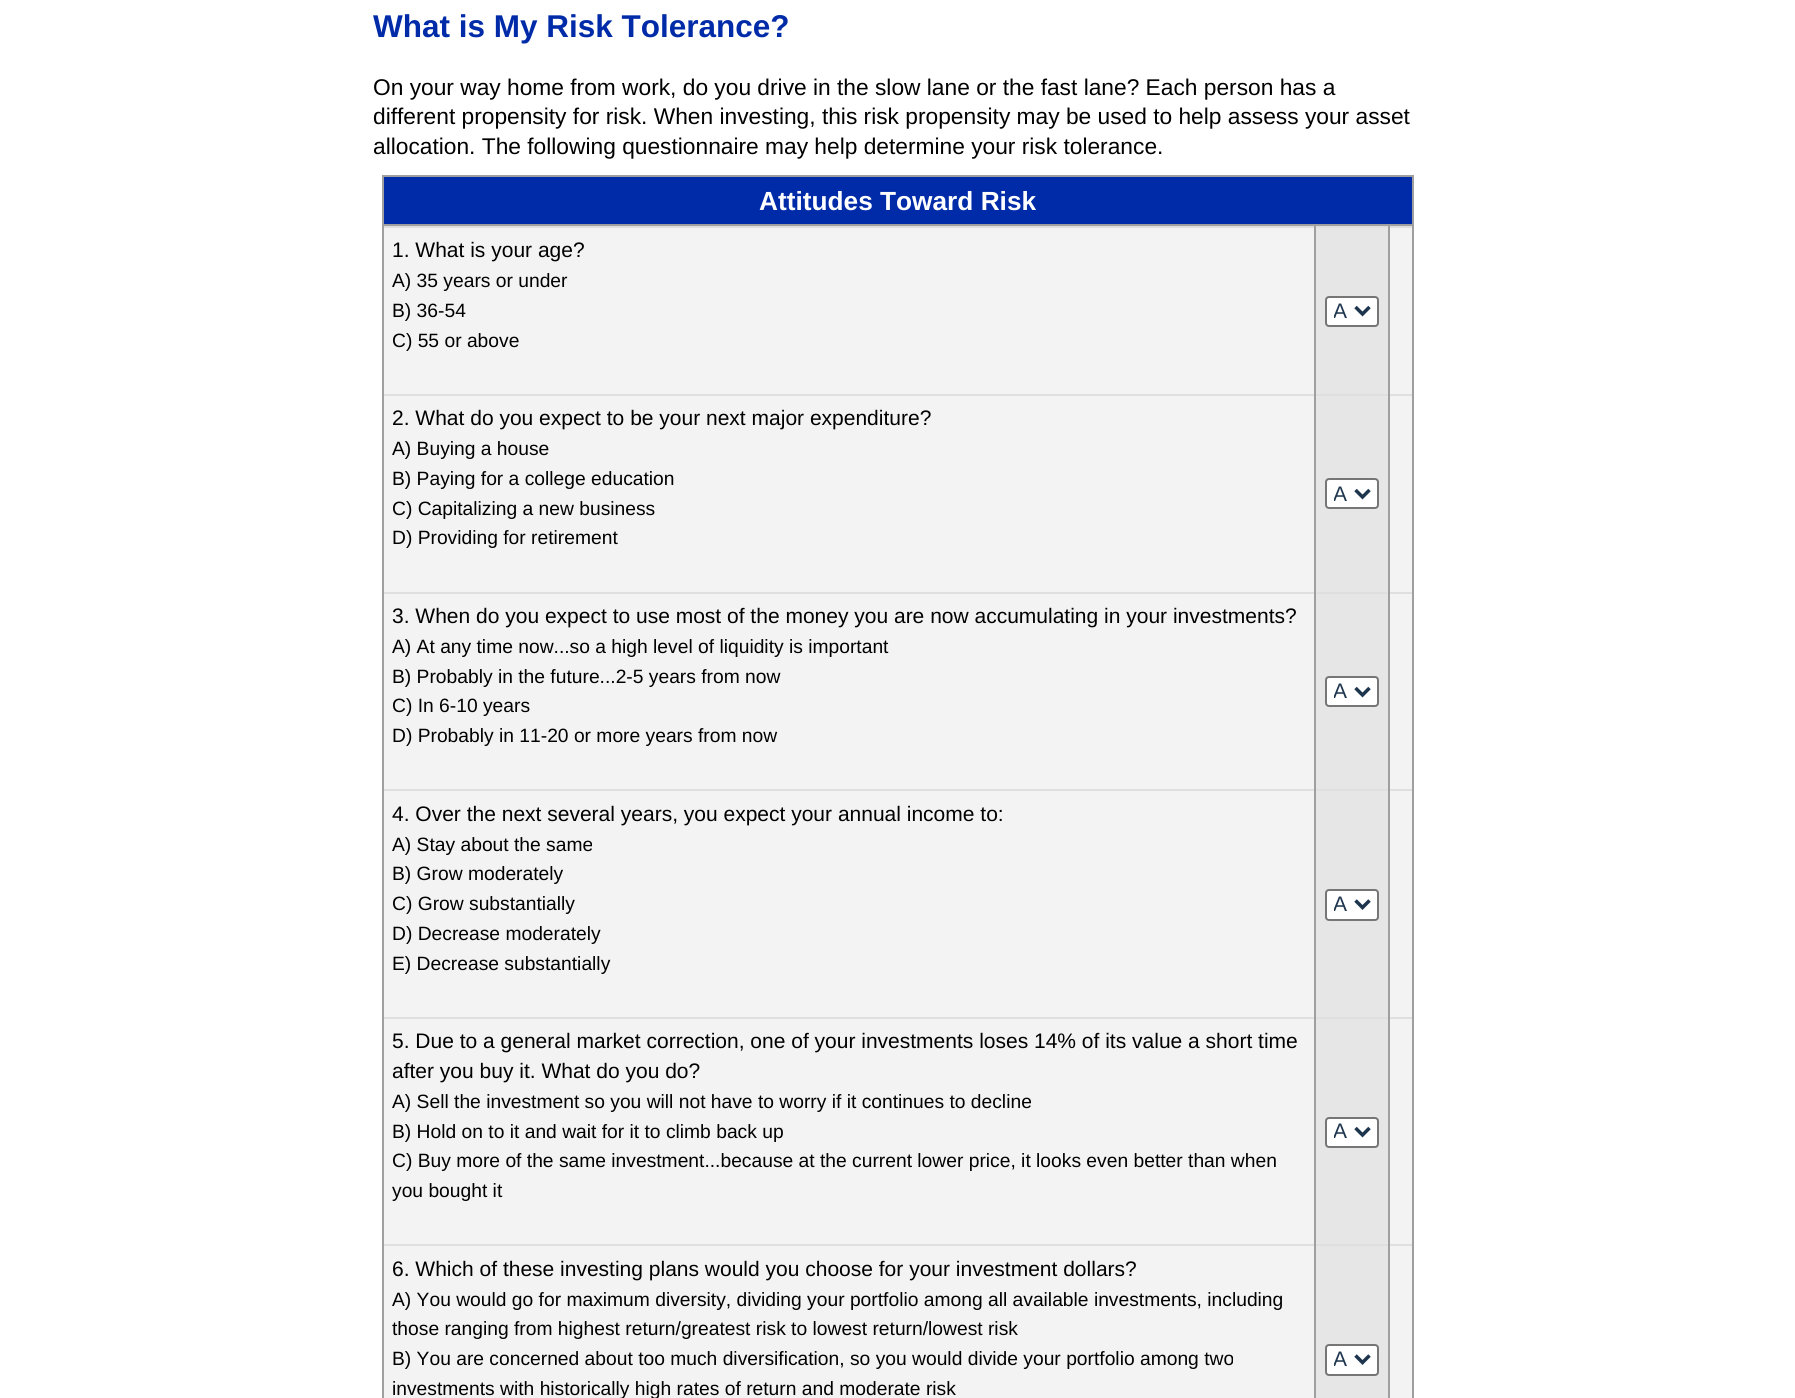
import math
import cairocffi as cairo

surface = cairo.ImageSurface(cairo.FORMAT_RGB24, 1795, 1398)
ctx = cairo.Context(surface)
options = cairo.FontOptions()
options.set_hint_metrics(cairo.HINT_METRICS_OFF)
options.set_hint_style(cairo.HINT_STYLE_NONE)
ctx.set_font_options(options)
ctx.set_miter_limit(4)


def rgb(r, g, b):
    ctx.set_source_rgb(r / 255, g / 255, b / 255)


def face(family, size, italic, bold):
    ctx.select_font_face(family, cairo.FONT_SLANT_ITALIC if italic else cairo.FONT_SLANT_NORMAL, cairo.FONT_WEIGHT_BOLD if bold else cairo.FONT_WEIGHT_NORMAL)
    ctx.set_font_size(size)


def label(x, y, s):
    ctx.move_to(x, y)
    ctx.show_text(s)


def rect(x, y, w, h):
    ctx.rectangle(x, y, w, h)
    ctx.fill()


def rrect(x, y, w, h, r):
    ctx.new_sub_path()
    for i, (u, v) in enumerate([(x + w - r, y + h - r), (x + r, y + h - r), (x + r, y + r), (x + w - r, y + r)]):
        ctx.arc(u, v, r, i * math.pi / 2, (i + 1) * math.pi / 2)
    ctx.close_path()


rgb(255, 255, 255)
ctx.paint()
face('Liberation Sans', 31.5, 0, 1)
rgb(0, 43, 168)
label(373, 37, 'What is My Risk Tolerance?')
face('Liberation Sans', 22.75, 0, 0)
rgb(0, 0, 0)
label(373, 95, 'On your way home from work, do you drive in the slow lane or the fast lane? Each person has a')
label(373, 124, 'different propensity for risk. When investing, this risk propensity may be used to help assess your asset')
label(373, 154, 'allocation. The following questionnaire may help determine your risk tolerance.')
rgb(0, 43, 168)
ctx.rectangle(383, 176, 1030, 49)
ctx.fill_preserve()
rgb(159, 159, 159)
ctx.stroke()
face('Liberation Sans', 26.25, 0, 1)
rgb(255, 255, 255)
label(759, 210, 'Attitudes Toward Risk')
rgb(243, 243, 243)
rect(384, 228, 930, 166)
rgb(223, 223, 223)
rect(382, 226, 1032, 2)
rgb(159, 159, 159)
rect(382, 226, 2, 168)
face('Liberation Sans', 21, 0, 0)
rgb(0, 0, 0)
label(392, 257, '1. What is your age?')
face('Liberation Sans', 19.25, 0, 0)
label(392, 287, 'A) 35 years or under')
label(392, 317, 'B) 36-54')
label(392, 347, 'C) 55 or above')
rgb(230, 230, 230)
rect(1316, 228, 72, 166)
rgb(159, 159, 159)
rect(1388, 226, 2, 168)
rect(1314, 226, 2, 168)
rgb(255, 255, 255)
rrect(1326, 297, 52, 29, 3)
ctx.fill_preserve()
rgb(118, 118, 118)
ctx.stroke()
ctx.new_path()
ctx.move_to(1355.5, 307)
ctx.line_to(1362.5, 314)
ctx.line_to(1369.5, 307)
rgb(30, 53, 78)
ctx.set_line_width(3.5)
ctx.stroke()
ctx.save()
ctx.rectangle(1334, 298, 15, 28)
ctx.clip()
face('Liberation Sans', 21, 0, 0)
label(1333, 318, 'A')
ctx.restore()
rgb(243, 243, 243)
rect(1390, 228, 22, 166)
rgb(159, 159, 159)
rect(1412, 226, 2, 168)
rgb(243, 243, 243)
rect(384, 396, 930, 196)
rgb(223, 223, 223)
rect(382, 394, 1032, 2)
rgb(159, 159, 159)
rect(382, 394, 2, 198)
face('Liberation Sans', 21, 0, 0)
rgb(0, 0, 0)
label(392, 425, '2. What do you expect to be your next major expenditure?')
face('Liberation Sans', 19.25, 0, 0)
label(392, 455, 'A) Buying a house')
label(392, 485, 'B) Paying for a college education')
label(392, 515, 'C) Capitalizing a new business')
label(392, 544, 'D) Providing for retirement')
rgb(230, 230, 230)
rect(1316, 396, 72, 196)
rgb(159, 159, 159)
rect(1388, 394, 2, 198)
rect(1314, 394, 2, 198)
rgb(255, 255, 255)
rrect(1326, 479, 52, 29, 3)
ctx.fill_preserve()
rgb(118, 118, 118)
ctx.set_line_width(2)
ctx.stroke()
ctx.new_path()
ctx.move_to(1355.5, 490)
ctx.line_to(1362.5, 497)
ctx.line_to(1369.5, 490)
rgb(30, 53, 78)
ctx.set_line_width(3.5)
ctx.stroke()
ctx.save()
ctx.rectangle(1334, 480, 15, 28)
ctx.clip()
face('Liberation Sans', 21, 0, 0)
label(1333, 501, 'A')
ctx.restore()
rgb(243, 243, 243)
rect(1390, 396, 22, 196)
rgb(159, 159, 159)
rect(1412, 394, 2, 198)
rgb(243, 243, 243)
rect(384, 594, 930, 195)
rgb(223, 223, 223)
rect(382, 592, 1032, 2)
rgb(159, 159, 159)
rect(382, 592, 2, 197)
face('Liberation Sans', 21, 0, 0)
rgb(0, 0, 0)
label(392, 623, '3. When do you expect to use most of the money you are now accumulating in your investments?')
face('Liberation Sans', 19.25, 0, 0)
label(392, 653, 'A) At any time now...so a high level of liquidity is important')
label(392, 683, 'B) Probably in the future...2-5 years from now')
label(392, 712, 'C) In 6-10 years')
label(392, 742, 'D) Probably in 11-20 or more years from now')
rgb(230, 230, 230)
rect(1316, 594, 72, 195)
rgb(159, 159, 159)
rect(1388, 592, 2, 197)
rect(1314, 592, 2, 197)
rgb(255, 255, 255)
rrect(1326, 677, 52, 29, 3)
ctx.fill_preserve()
rgb(118, 118, 118)
ctx.set_line_width(2)
ctx.stroke()
ctx.new_path()
ctx.move_to(1355.5, 688)
ctx.line_to(1362.5, 695)
ctx.line_to(1369.5, 688)
rgb(30, 53, 78)
ctx.set_line_width(3.5)
ctx.stroke()
ctx.save()
ctx.rectangle(1334, 677, 15, 28)
ctx.clip()
face('Liberation Sans', 21, 0, 0)
label(1333, 698, 'A')
ctx.restore()
rgb(243, 243, 243)
rect(1390, 594, 22, 195)
rgb(159, 159, 159)
rect(1412, 592, 2, 197)
rgb(243, 243, 243)
rect(384, 791, 930, 226)
rgb(223, 223, 223)
rect(382, 789, 1032, 2)
rgb(159, 159, 159)
rect(382, 789, 2, 228)
face('Liberation Sans', 21, 0, 0)
rgb(0, 0, 0)
label(392, 821, '4. Over the next several years, you expect your annual income to:')
face('Liberation Sans', 19.25, 0, 0)
label(392, 851, 'A) Stay about the same')
label(392, 880, 'B) Grow moderately')
label(392, 910, 'C) Grow substantially')
label(392, 940, 'D) Decrease moderately')
label(392, 970, 'E) Decrease substantially')
rgb(230, 230, 230)
rect(1316, 791, 72, 226)
rgb(159, 159, 159)
rect(1388, 789, 2, 228)
rect(1314, 789, 2, 228)
rgb(255, 255, 255)
rrect(1326, 890, 52, 30, 3)
ctx.fill_preserve()
rgb(118, 118, 118)
ctx.set_line_width(2)
ctx.stroke()
ctx.new_path()
ctx.move_to(1355.5, 900.5)
ctx.line_to(1362.5, 907.5)
ctx.line_to(1369.5, 900.5)
rgb(30, 53, 78)
ctx.set_line_width(3.5)
ctx.stroke()
ctx.save()
ctx.rectangle(1334, 891, 15, 28)
ctx.clip()
face('Liberation Sans', 21, 0, 0)
label(1333, 911, 'A')
ctx.restore()
rgb(243, 243, 243)
rect(1390, 791, 22, 226)
rgb(159, 159, 159)
rect(1412, 789, 2, 228)
rgb(243, 243, 243)
rect(384, 1019, 930, 225)
rgb(223, 223, 223)
rect(382, 1017, 1032, 2)
rgb(159, 159, 159)
rect(382, 1017, 2, 227)
face('Liberation Sans', 21, 0, 0)
rgb(0, 0, 0)
label(392, 1048, '5. Due to a general market correction, one of your investments loses 14% of its value a short time')
label(392, 1078, 'after you buy it. What do you do?')
face('Liberation Sans', 19.25, 0, 0)
label(392, 1108, 'A) Sell the investment so you will not have to worry if it continues to decline')
label(392, 1138, 'B) Hold on to it and wait for it to climb back up')
label(392, 1167, 'C) Buy more of the same investment...because at the current lower price, it looks even better than when')
label(392, 1197, 'you bought it')
rgb(230, 230, 230)
rect(1316, 1019, 72, 225)
rgb(159, 159, 159)
rect(1388, 1017, 2, 227)
rect(1314, 1017, 2, 227)
rgb(255, 255, 255)
rrect(1326, 1118, 52, 29, 3)
ctx.fill_preserve()
rgb(118, 118, 118)
ctx.set_line_width(2)
ctx.stroke()
ctx.new_path()
ctx.move_to(1355.5, 1128)
ctx.line_to(1362.5, 1135)
ctx.line_to(1369.5, 1128)
rgb(30, 53, 78)
ctx.set_line_width(3.5)
ctx.stroke()
ctx.save()
ctx.rectangle(1334, 1118, 15, 28)
ctx.clip()
face('Liberation Sans', 21, 0, 0)
label(1333, 1138, 'A')
ctx.restore()
rgb(243, 243, 243)
rect(1390, 1019, 22, 225)
rgb(159, 159, 159)
rect(1412, 1017, 2, 227)
rgb(243, 243, 243)
rect(384, 1246, 930, 152)
rgb(223, 223, 223)
rect(382, 1244, 1032, 2)
rgb(159, 159, 159)
rect(382, 1244, 2, 154)
face('Liberation Sans', 21, 0, 0)
rgb(0, 0, 0)
label(392, 1276, '6. Which of these investing plans would you choose for your investment dollars?')
face('Liberation Sans', 19.25, 0, 0)
label(392, 1306, 'A) You would go for maximum diversity, dividing your portfolio among all available investments, including')
label(392, 1335, 'those ranging from highest return/greatest risk to lowest return/lowest risk')
label(392, 1365, 'B) You are concerned about too much diversification, so you would divide your portfolio among two')
label(392, 1395, 'investments with historically high rates of return and moderate risk')
rgb(230, 230, 230)
rect(1316, 1246, 72, 152)
rgb(159, 159, 159)
rect(1388, 1244, 2, 154)
rect(1314, 1244, 2, 154)
rgb(255, 255, 255)
rrect(1326, 1345, 52, 30, 3)
ctx.fill_preserve()
rgb(118, 118, 118)
ctx.set_line_width(2)
ctx.stroke()
ctx.new_path()
ctx.move_to(1355.5, 1355.5)
ctx.line_to(1362.5, 1362.5)
ctx.line_to(1369.5, 1355.5)
rgb(30, 53, 78)
ctx.set_line_width(3.5)
ctx.stroke()
ctx.save()
ctx.rectangle(1334, 1346, 15, 28)
ctx.clip()
face('Liberation Sans', 21, 0, 0)
label(1333, 1366, 'A')
ctx.restore()
rgb(243, 243, 243)
rect(1390, 1246, 22, 152)
rgb(159, 159, 159)
rect(1412, 1244, 2, 154)
surface.write_to_png('render.png')
